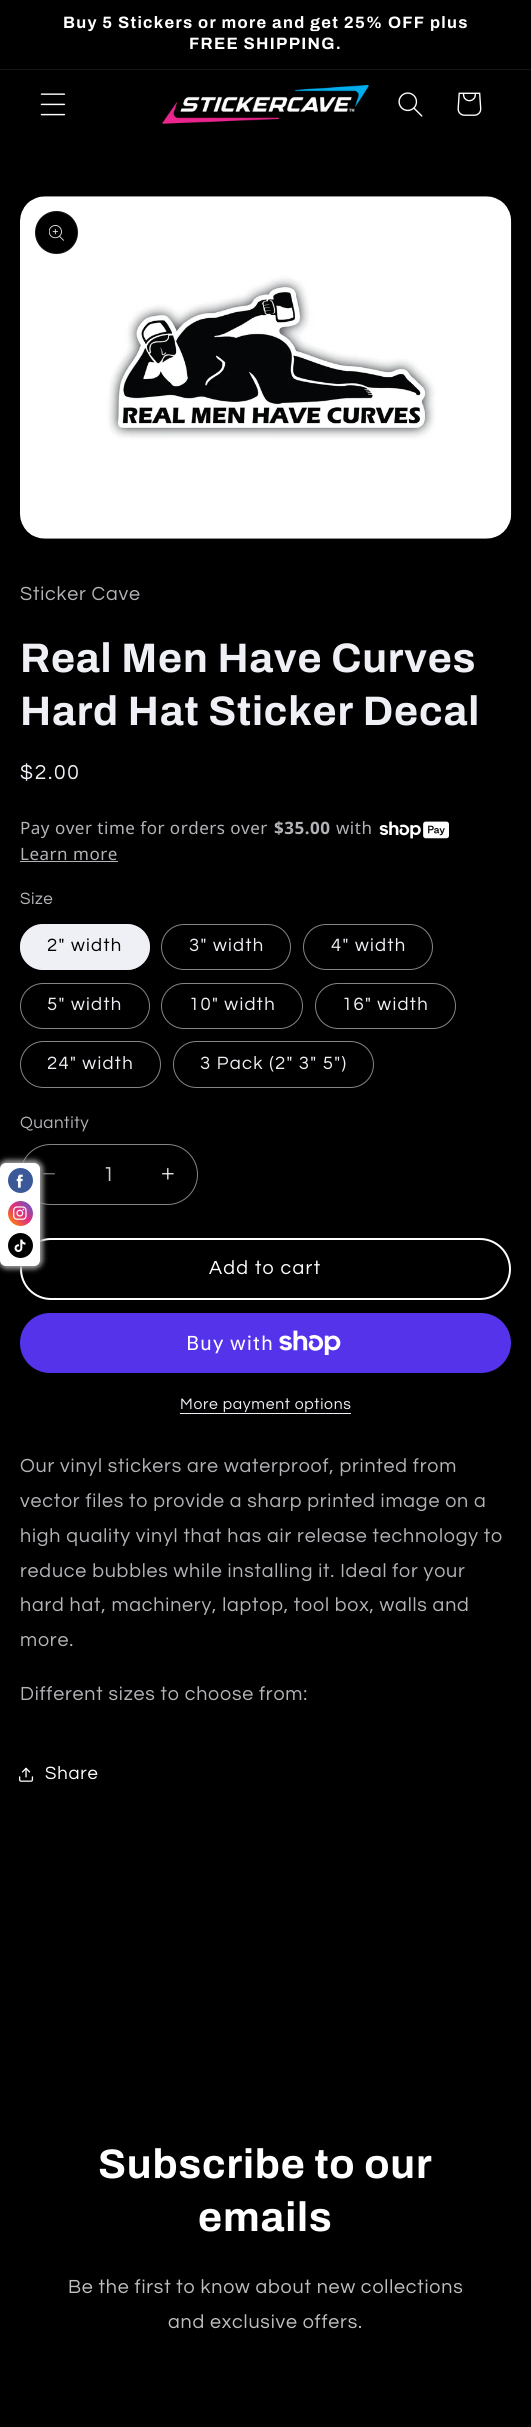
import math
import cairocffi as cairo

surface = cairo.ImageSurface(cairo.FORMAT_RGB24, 531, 2427)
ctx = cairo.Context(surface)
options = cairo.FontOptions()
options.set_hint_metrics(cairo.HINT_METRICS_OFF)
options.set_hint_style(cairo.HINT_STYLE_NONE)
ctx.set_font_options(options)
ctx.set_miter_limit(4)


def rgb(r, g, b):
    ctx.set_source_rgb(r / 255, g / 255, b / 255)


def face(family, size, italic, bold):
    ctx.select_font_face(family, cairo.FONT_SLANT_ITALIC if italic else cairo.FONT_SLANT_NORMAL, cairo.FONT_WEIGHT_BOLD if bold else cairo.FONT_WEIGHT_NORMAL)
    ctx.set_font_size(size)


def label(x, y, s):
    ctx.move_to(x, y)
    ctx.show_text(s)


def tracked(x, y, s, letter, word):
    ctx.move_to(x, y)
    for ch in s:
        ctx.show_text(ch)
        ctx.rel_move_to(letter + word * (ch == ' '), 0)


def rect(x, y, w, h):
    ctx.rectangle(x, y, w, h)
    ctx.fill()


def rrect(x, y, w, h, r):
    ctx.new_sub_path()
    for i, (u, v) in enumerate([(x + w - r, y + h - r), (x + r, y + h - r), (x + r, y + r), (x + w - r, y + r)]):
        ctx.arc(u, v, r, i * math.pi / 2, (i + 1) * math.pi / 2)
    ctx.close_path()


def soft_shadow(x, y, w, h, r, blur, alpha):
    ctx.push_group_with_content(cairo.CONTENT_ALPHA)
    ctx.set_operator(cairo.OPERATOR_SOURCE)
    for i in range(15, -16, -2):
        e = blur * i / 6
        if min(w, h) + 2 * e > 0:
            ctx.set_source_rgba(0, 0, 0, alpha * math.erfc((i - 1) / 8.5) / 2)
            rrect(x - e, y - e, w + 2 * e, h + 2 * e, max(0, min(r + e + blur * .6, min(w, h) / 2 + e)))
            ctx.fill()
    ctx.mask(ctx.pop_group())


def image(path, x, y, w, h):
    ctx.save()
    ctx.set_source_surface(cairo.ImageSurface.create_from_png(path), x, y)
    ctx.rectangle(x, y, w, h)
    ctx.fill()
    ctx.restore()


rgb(0, 0, 0)
ctx.paint()
rgb(20, 20, 20)
rect(0, 69, 531, 1)
face('Archivo', 16.5, 0, 1)
rgb(255, 255, 255)
tracked(63, 28, 'Buy 5 Stickers or more and get 25% OFF plus', 1.3, 0)
tracked(189, 49, 'FREE SHIPPING.', 1.3, 0)
image('image0.png', 40, 93, 26, 23)
image('image1.png', 162, 85, 207, 39)
image('image2.png', 398, 92, 25, 25)
image('image3.png', 457, 92, 25, 24)
image('image4.png', 20, 196, 492, 343)
rgb(0, 0, 0)
ctx.arc(56.5, 232.5, 21.5, 0, 2 * math.pi)
ctx.fill()
ctx.arc(56.5, 232.5, 21, 0, 2 * math.pi)
ctx.set_source_rgba(0.937, 0.941, 0.961, 0.1)
ctx.set_line_width(1)
ctx.stroke()
image('image5.png', 49, 225, 15, 16)
face('Questrial', 19.7, 0, 0)
rgb(179, 180, 184)
tracked(20, 600, 'Sticker Cave', 0.8, 0)
face('Archivo', 41.25, 0, 1)
rgb(239, 240, 245)
tracked(20, 672, 'Real Men Have Curves', 0.8, 0)
tracked(20, 725, 'Hard Hat Sticker Decal', 0.8, 0)
face('Questrial', 21, 0, 0)
tracked(20, 779, '$2.00', 1.75, 0)
face('Noto Sans', 17, 0, 0)
rgb(179, 180, 184)
tracked(20, 834, 'Pay over time for orders over', 0.5, 0)
face('Noto Sans', 17, 0, 1)
tracked(274, 834, '$35.00', 0.5, 0)
face('Noto Sans', 17, 0, 0)
tracked(336, 834, 'with', 0.5, 0)
image('image6.png', 379, 821, 70, 18)
tracked(20, 860, 'Learn more', 0.5, 0)
rect(20, 861, 98, 1)
face('Questrial', 17, 0, 0)
tracked(20, 904, 'Size', 0.5, 0)
rgb(239, 240, 245)
rrect(20, 924, 130, 46, 23)
ctx.fill()
rrect(20.5, 924.5, 129, 45, 22.5)
ctx.set_source_rgba(0.937, 0.941, 0.961, 0.55)
ctx.stroke()
face('Questrial', 18.5, 0, 0)
rgb(0, 0, 0)
tracked(47, 951, '2" width', 1.3, 0)
rrect(161.5, 924.5, 129, 45, 22.5)
rgb(131, 132, 135)
ctx.stroke()
rgb(239, 240, 245)
tracked(189, 951, '3" width', 1.3, 0)
rrect(303.5, 924.5, 129, 45, 22.5)
rgb(131, 132, 135)
ctx.stroke()
rgb(239, 240, 245)
tracked(331, 951, '4" width', 1.3, 0)
rrect(20.5, 983.5, 129, 45, 22.5)
rgb(131, 132, 135)
ctx.stroke()
rgb(239, 240, 245)
tracked(47, 1010, '5" width', 1.3, 0)
rrect(161.5, 983.5, 141, 45, 22.5)
rgb(131, 132, 135)
ctx.stroke()
rgb(239, 240, 245)
tracked(189, 1010, '10" width', 1.3, 0)
rrect(315.5, 983.5, 140, 45, 22.5)
rgb(131, 132, 135)
ctx.stroke()
rgb(239, 240, 245)
tracked(342, 1010, '16" width', 1.3, 0)
rrect(20.5, 1041.5, 140, 46, 23)
rgb(131, 132, 135)
ctx.stroke()
rgb(239, 240, 245)
tracked(47, 1069, '24" width', 1.3, 0)
rrect(173.5, 1041.5, 200, 46, 23)
rgb(131, 132, 135)
ctx.stroke()
rgb(239, 240, 245)
tracked(200, 1069, '3 Pack (2" 3" 5")', 1.3, 0)
face('Questrial', 17, 0, 0)
rgb(179, 180, 184)
tracked(20, 1128, 'Quantity', 0.5, 0)
image('image7.png', 43, 1173, 12, 2)
image('image8.png', 161, 1167, 13, 13)
rrect(20.5, 1144.5, 177, 60, 30)
rgb(131, 132, 135)
ctx.stroke()
face('Questrial', 21, 0, 0)
rgb(203, 204, 208)
label(103, 1181, '1')
rrect(21, 1239, 489, 60, 30)
rgb(255, 255, 255)
ctx.set_line_width(2)
ctx.stroke()
face('Questrial', 19.7, 0, 0)
tracked(209, 1274, 'Add to cart', 1.3, 0)
rgb(84, 51, 235)
rrect(20, 1313, 491, 60, 30)
ctx.fill()
face('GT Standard', 20, 0, 0)
rgb(255, 255, 255)
tracked(186, 1350, 'Buy with', 0.8, 0)
image('image9.png', 279, 1330, 62, 25)
face('Questrial', 15.75, 0, 0)
rgb(239, 240, 245)
tracked(180, 1409, 'More payment options', 0.7, 0)
rect(180, 1413, 171, 1)
face('Questrial', 19.7, 0, 0)
rgb(179, 180, 184)
tracked(20, 1472, 'Our vinyl stickers are waterproof, printed from', 0.8, 0)
tracked(20, 1507, 'vector files to provide a sharp printed image on a', 0.8, 0)
tracked(20, 1542, 'high quality vinyl that has air release technology to', 0.8, 0)
tracked(20, 1577, 'reduce bubbles while installing it. Ideal for your', 0.8, 0)
tracked(20, 1611, 'hard hat, machinery, laptop, tool box, walls and', 0.8, 0)
tracked(20, 1646, 'more.', 0.8, 0)
tracked(20, 1700, 'Different sizes to choose from:', 0.8, 0)
image('image10.png', 19, 1767, 15, 15)
face('Questrial', 18.5, 0, 0)
rgb(255, 255, 255)
tracked(45, 1779, 'Share', 0.8, 0)
rgb(158, 158, 158)
soft_shadow(-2, 1160, 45, 109, 9, 2.5, 1)
rgb(255, 255, 255)
rrect(0, 1163, 40, 103, 6)
ctx.fill()
image('image11.png', 8, 1168, 25, 25)
image('image12.png', 8, 1201, 25, 25)
image('image13.png', 8, 1233, 25, 25)
face('Archivo', 41.25, 0, 1)
tracked(98, 2178, 'Subscribe to our', 0.8, 0)
tracked(198, 2231, 'emails', 0.8, 0)
face('Questrial', 19.7, 0, 0)
rgb(191, 191, 191)
tracked(68, 2293, 'Be the first to know about new collections', 0.8, 0)
tracked(168, 2328, 'and exclusive offers.', 0.8, 0)
surface.write_to_png('render.png')
